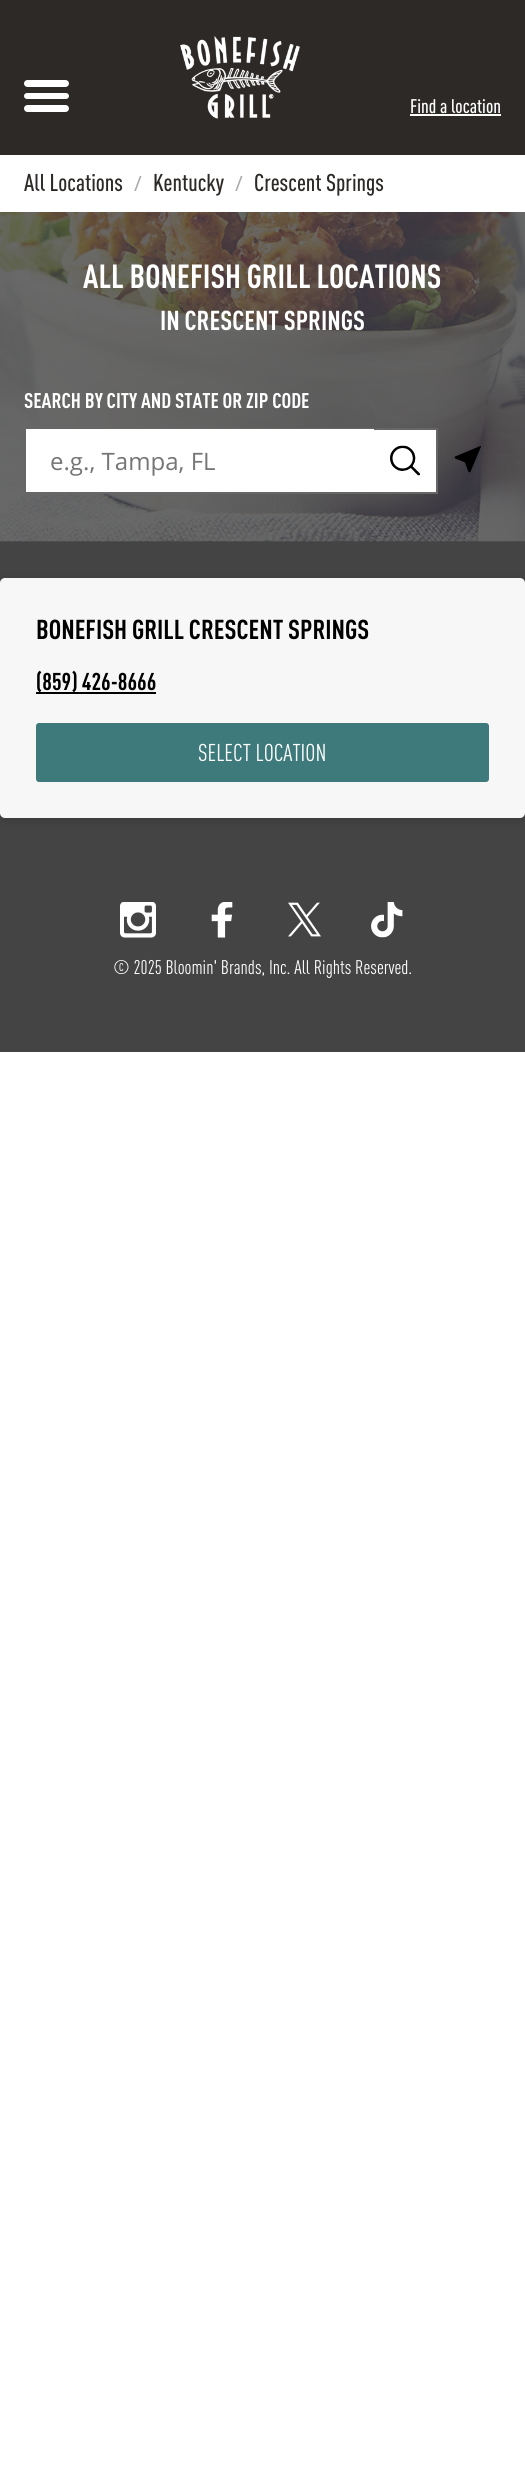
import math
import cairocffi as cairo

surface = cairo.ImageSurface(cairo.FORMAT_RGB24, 525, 2478)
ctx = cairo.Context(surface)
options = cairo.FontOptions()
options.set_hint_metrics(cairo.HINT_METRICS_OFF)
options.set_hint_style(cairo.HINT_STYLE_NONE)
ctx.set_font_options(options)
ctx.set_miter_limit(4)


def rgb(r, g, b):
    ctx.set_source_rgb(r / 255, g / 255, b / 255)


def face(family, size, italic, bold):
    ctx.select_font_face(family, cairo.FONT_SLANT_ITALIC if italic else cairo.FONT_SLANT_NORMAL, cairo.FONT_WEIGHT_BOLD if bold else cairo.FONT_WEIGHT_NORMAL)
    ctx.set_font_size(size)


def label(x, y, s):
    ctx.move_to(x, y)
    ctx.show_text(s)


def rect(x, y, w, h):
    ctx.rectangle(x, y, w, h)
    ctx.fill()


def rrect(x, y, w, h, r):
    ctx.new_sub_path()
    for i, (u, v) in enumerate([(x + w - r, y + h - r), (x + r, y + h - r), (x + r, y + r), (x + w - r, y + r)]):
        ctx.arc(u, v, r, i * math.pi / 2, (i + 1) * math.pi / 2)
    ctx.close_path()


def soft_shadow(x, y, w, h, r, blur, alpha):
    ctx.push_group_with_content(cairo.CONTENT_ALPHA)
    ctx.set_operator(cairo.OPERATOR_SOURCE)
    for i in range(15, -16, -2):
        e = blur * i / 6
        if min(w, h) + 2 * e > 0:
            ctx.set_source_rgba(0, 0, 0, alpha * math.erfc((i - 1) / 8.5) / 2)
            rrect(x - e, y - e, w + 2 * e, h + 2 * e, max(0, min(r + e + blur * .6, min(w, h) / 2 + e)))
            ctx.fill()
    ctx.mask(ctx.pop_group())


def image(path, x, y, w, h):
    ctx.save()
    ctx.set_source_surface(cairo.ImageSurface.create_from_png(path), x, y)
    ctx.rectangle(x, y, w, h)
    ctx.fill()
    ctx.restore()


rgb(255, 255, 255)
ctx.paint()
rgb(45, 41, 38)
rect(0, 0, 525, 155)
rgb(255, 255, 255)
rrect(24, 105, 45, 7, 3.5)
ctx.fill()
rrect(24, 93, 45, 6, 3)
ctx.fill()
rrect(24, 80, 45, 7, 3.5)
ctx.fill()
image('image0.png', 180, 36, 120, 83)
face('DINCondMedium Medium', 19.5, 0, 0)
label(410, 113, 'Find a location')
rect(410, 114, 91, 2)
face('DINCondMedium Medium', 24, 0, 0)
rgb(45, 41, 38)
label(24, 191, 'All Locations')
face('Open Sans', 21, 0, 0)
rgb(170, 170, 170)
label(134, 191, '/')
face('DINCondMedium Medium', 24, 0, 0)
rgb(45, 41, 38)
label(153, 191, 'Kentucky')
face('Open Sans', 21, 0, 0)
rgb(170, 170, 170)
label(235, 191, '/')
face('DINCondMedium Medium', 24, 0, 0)
rgb(45, 41, 38)
label(254, 191, 'Crescent Springs')
rgb(68, 68, 68)
rect(0, 542, 525, 510)
rgb(54, 54, 54)
rect(0, 541, 525, 1)
image('image1.png', 0, 212, 525, 330)
face('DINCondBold', 33, 0, 1)
rgb(255, 255, 255)
label(83, 288, 'ALL BONEFISH GRILL LOCATIONS')
face('DINCondBold', 27, 0, 1)
label(160, 330, 'IN CRESCENT SPRINGS')
face('DINCondBold', 21, 0, 1)
label(24, 408, 'SEARCH BY CITY AND STATE OR ZIP CODE')
rect(374, 430, 62, 62)
ctx.rectangle(25, 429, 412, 64)
rgb(102, 102, 102)
ctx.stroke()
rgb(255, 255, 255)
rect(26, 429, 348, 63)
face('Open Sans', 24, 0, 0)
rgb(117, 117, 117)
label(50, 470, 'e.g., Tampa, FL')
image('image2.png', 390, 445, 30, 31)
image('image3.png', 454, 446, 27, 27)
rgb(0, 0, 0)
soft_shadow(0, 581, 525, 240, 5, 6, 0.15)
rgb(247, 247, 248)
rrect(0, 578, 525, 240, 5)
ctx.fill()
face('DINCondBold', 27, 0, 1)
rgb(0, 0, 0)
label(36, 639, 'BONEFISH GRILL CRESCENT SPRINGS')
rect(36, 692, 120, 2)
face('DINCondBold', 24, 0, 1)
label(36, 690, '(859) 426-8666')
rgb(62, 122, 123)
rrect(36, 723, 453, 59, 3)
ctx.fill()
face('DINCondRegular', 24, 0, 0)
rgb(255, 255, 255)
label(198, 761, 'SELECT LOCATION')
image('image4.png', 120, 902, 36, 36)
image('image5.png', 211, 902, 22, 36)
image('image6.png', 288, 902, 33, 35)
image('image7.png', 371, 902, 32, 36)
face('DINCondRegular', 19.5, 0, 0)
label(113, 974, '© 2025 Bloomin\' Brands, Inc. All Rights Reserved.')
surface.write_to_png('render.png')
